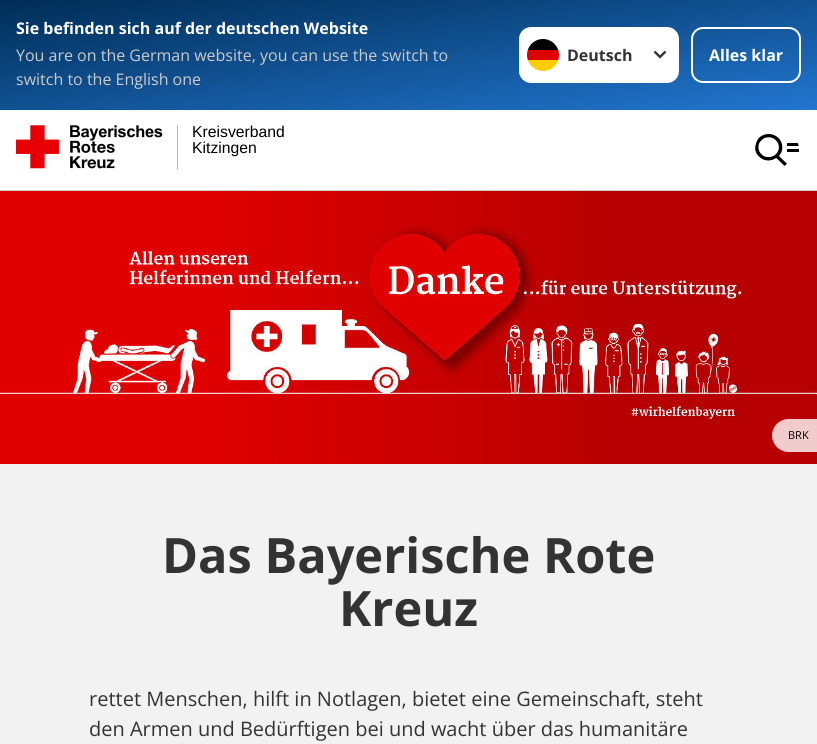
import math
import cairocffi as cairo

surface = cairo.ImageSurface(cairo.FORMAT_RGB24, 817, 744)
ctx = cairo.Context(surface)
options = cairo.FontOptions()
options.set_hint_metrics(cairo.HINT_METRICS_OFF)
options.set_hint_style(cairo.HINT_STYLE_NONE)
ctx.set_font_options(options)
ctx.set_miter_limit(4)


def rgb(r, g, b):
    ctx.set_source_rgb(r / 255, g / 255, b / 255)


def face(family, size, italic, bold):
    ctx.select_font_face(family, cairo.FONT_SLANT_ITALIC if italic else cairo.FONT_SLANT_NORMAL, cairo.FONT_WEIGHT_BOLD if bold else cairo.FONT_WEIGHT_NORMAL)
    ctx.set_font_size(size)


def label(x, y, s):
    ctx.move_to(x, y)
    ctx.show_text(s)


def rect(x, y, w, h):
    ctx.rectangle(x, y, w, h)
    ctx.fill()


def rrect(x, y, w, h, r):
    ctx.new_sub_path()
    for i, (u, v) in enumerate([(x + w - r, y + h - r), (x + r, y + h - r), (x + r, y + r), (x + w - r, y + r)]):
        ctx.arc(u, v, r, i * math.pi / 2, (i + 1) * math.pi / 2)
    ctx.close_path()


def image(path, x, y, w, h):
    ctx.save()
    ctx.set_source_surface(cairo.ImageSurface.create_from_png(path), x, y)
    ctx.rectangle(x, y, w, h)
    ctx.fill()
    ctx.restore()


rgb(255, 255, 255)
ctx.paint()
gradient = cairo.LinearGradient(394, -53, 423, 163)
gradient.add_color_stop_rgba(0, 0, 0.176, 0.333, 1)
gradient.add_color_stop_rgba(1, 0.133, 0.463, 0.816, 1)
ctx.set_source(gradient)
rect(0, 0, 817, 110)
face('Open Sans', 16, 0, 1)
rgb(255, 255, 255)
label(16, 34, 'Sie befinden sich auf der deutschen Website')
face('Open Sans', 16, 0, 0)
rgb(203, 203, 203)
label(16, 61, 'You are on the German website, you can use the switch to')
label(16, 85, 'switch to the English one')
rgb(255, 255, 255)
rrect(519, 27, 160, 56, 12)
ctx.fill()
ctx.save()
rrect(527, 39, 32, 32, 16)
ctx.clip()
rgb(255, 206, 0)
rect(527, 60, 32, 11)
rgb(0, 0, 0)
rect(527, 39, 32, 11)
rgb(221, 0, 0)
rect(527, 50, 32, 10)
ctx.restore()
image('image0.png', 654, 51, 12, 8)
face('Open Sans', 16, 0, 1)
rgb(51, 51, 51)
label(567, 61, 'Deutsch')
rrect(692, 28, 108, 54, 11)
rgb(255, 255, 255)
ctx.stroke()
label(709, 61, 'Alles klar')
rgb(203, 203, 203)
rect(0, 190, 817, 1)
image('image1.png', 16, 125, 162, 45)
face('Liberation Sans', 15.75, 0, 0)
rgb(0, 0, 0)
label(192, 137, 'Kreisverband')
label(192, 153, 'Kitzingen')
image('image2.png', 755, 134, 32, 32)
ctx.save()
rrect(755, 128, 44, 44, 22)
ctx.clip()
rect(787, 143, 12, 3)
ctx.restore()
rect(787, 149, 12, 3)
image('image3.png', 0, 191, 817, 273)
ctx.set_source_rgba(1, 1, 1, 0.8)
ctx.new_path()
ctx.move_to(788.5, 419)
ctx.line_to(817, 419)
ctx.line_to(817, 452)
ctx.line_to(788.5, 452)
ctx.curve_to(779.5, 452, 772, 444.5, 772, 435.5)
ctx.curve_to(772, 426.5, 779.5, 419, 788.5, 419)
ctx.close_path()
ctx.fill()
face('Open Sans', 11, 0, 0)
rgb(0, 0, 0)
label(788, 439, 'BRK')
rgb(242, 242, 242)
rect(0, 464, 817, 280)
face('Open Sans', 48.75, 0, 1)
rgb(51, 51, 51)
label(162, 573, 'Das Bayerische Rote')
label(339, 626, 'Kreuz')
face('Open Sans', 20, 0, 0)
label(89, 706, 'rettet Menschen, hilft in Notlagen, bietet eine Gemeinschaft, steht')
label(89, 736, 'den Armen und Bedürftigen bei und wacht über das humanitäre')
surface.write_to_png('render.png')
